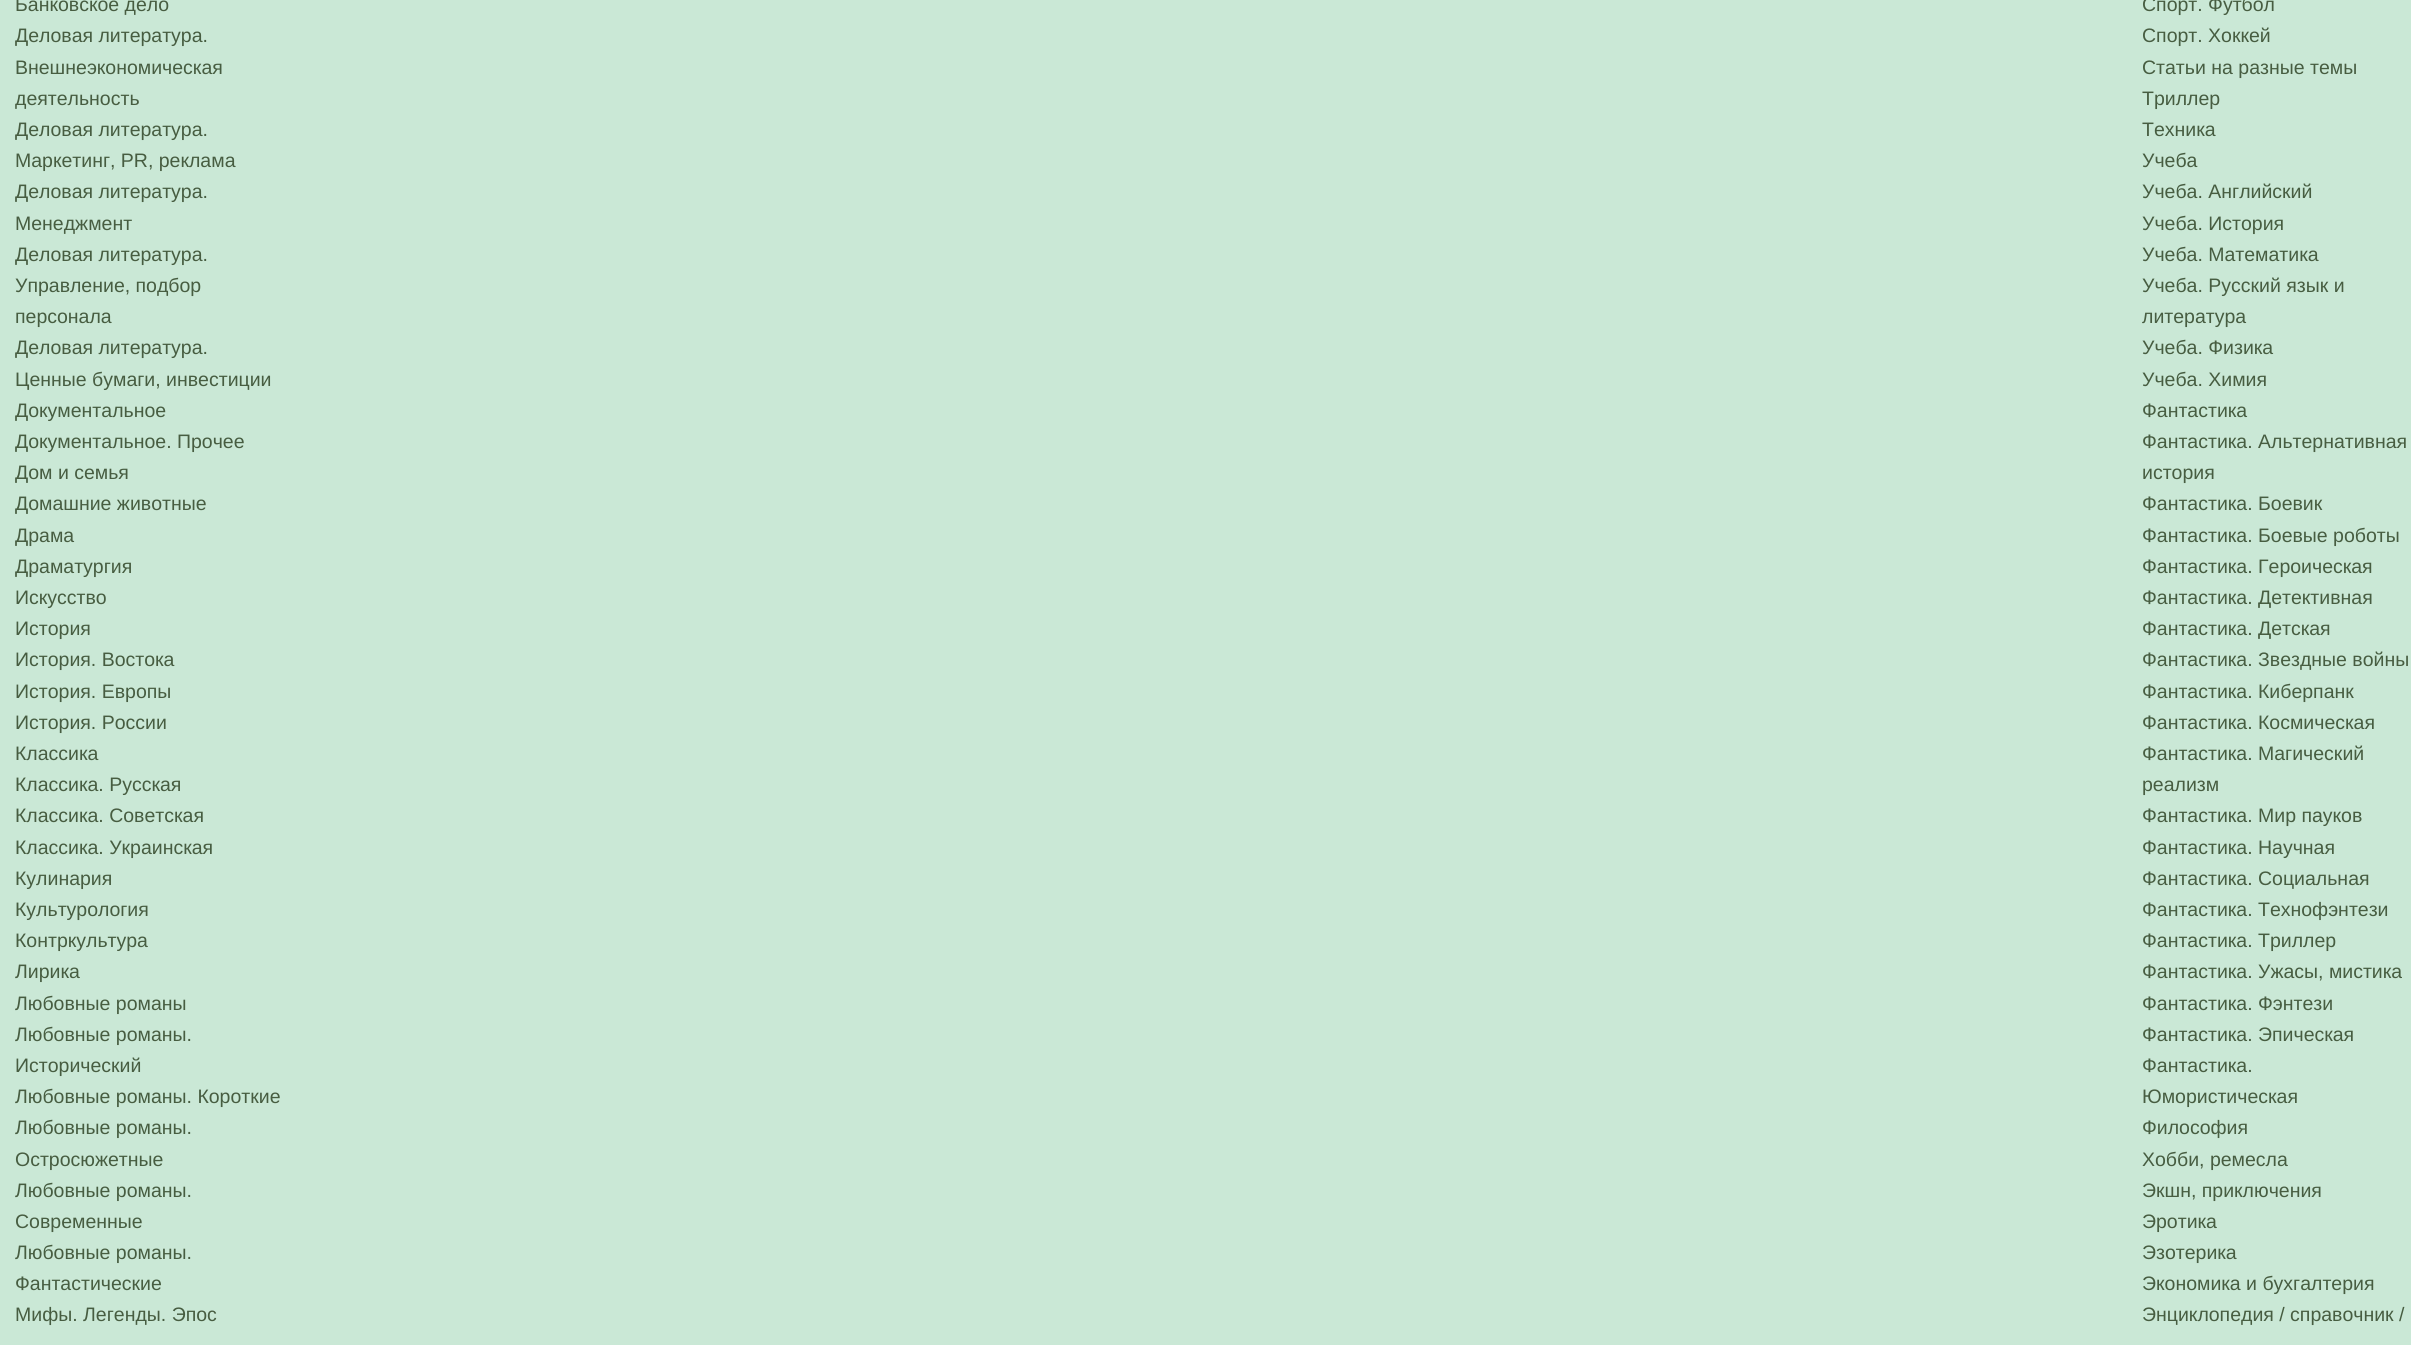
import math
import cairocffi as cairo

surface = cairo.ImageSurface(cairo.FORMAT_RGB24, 2411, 1345)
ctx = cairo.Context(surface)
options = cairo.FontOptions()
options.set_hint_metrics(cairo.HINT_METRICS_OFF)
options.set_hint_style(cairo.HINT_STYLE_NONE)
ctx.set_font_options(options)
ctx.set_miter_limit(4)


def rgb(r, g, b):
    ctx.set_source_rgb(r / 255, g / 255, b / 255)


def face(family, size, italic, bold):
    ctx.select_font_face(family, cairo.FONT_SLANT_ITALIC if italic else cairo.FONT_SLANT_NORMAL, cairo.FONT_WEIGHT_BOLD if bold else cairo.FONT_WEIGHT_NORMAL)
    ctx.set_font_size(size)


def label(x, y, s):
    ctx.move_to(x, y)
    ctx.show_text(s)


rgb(202, 232, 214)
ctx.paint()
face('Liberation Sans', 19.5, 0, 0)
rgb(71, 93, 65)
label(15, 11, 'Банковское дело')
label(15, 42, 'Деловая литература.')
label(15, 74, 'Внешнеэкономическая')
label(15, 105, 'деятельность')
label(15, 136, 'Деловая литература.')
label(15, 167, 'Маркетинг, PR, реклама')
label(15, 198, 'Деловая литература.')
label(15, 230, 'Менеджмент')
label(15, 261, 'Деловая литература.')
label(15, 292, 'Управление, подбор')
label(15, 323, 'персонала')
label(15, 354, 'Деловая литература.')
label(15, 386, 'Ценные бумаги, инвестиции')
label(15, 417, 'Документальное')
label(15, 448, 'Документальное. Прочее')
label(15, 479, 'Дом и семья')
label(15, 510, 'Домашние животные')
label(15, 542, 'Драма')
label(15, 573, 'Драматургия')
label(15, 604, 'Искусство')
label(15, 635, 'История')
label(15, 666, 'История. Востока')
label(15, 698, 'История. Европы')
label(15, 729, 'История. России')
label(15, 760, 'Классика')
label(15, 791, 'Классика. Русская')
label(15, 822, 'Классика. Советская')
label(15, 854, 'Классика. Украинская')
label(15, 885, 'Кулинария')
label(15, 916, 'Культурология')
label(15, 947, 'Контркультура')
label(15, 978, 'Лирика')
label(15, 1010, 'Любовные романы')
label(15, 1041, 'Любовные романы.')
label(15, 1072, 'Исторический')
label(15, 1103, 'Любовные романы. Короткие')
label(15, 1134, 'Любовные романы.')
label(15, 1166, 'Остросюжетные')
label(15, 1197, 'Любовные романы.')
label(15, 1228, 'Современные')
label(15, 1259, 'Любовные романы.')
label(15, 1290, 'Фантастические')
label(15, 1321, 'Мифы. Легенды. Эпос')
label(2142, 11, 'Спорт. Футбол')
label(2142, 42, 'Спорт. Хоккей')
label(2142, 74, 'Статьи на разные темы')
label(2142, 105, 'Триллер')
label(2142, 136, 'Техника')
label(2142, 167, 'Учеба')
label(2142, 198, 'Учеба. Английский')
label(2142, 230, 'Учеба. История')
label(2142, 261, 'Учеба. Математика')
label(2142, 292, 'Учеба. Русский язык и')
label(2142, 323, 'литература')
label(2142, 354, 'Учеба. Физика')
label(2142, 386, 'Учеба. Химия')
label(2142, 417, 'Фантастика')
label(2142, 448, 'Фантастика. Альтернативная')
label(2142, 479, 'история')
label(2142, 510, 'Фантастика. Боевик')
label(2142, 542, 'Фантастика. Боевые роботы')
label(2142, 573, 'Фантастика. Героическая')
label(2142, 604, 'Фантастика. Детективная')
label(2142, 635, 'Фантастика. Детская')
label(2142, 666, 'Фантастика. Звездные войны')
label(2142, 698, 'Фантастика. Киберпанк')
label(2142, 729, 'Фантастика. Космическая')
label(2142, 760, 'Фантастика. Магический')
label(2142, 791, 'реализм')
label(2142, 822, 'Фантастика. Мир пауков')
label(2142, 854, 'Фантастика. Научная')
label(2142, 885, 'Фантастика. Социальная')
label(2142, 916, 'Фантастика. Технофэнтези')
label(2142, 947, 'Фантастика. Триллер')
label(2142, 978, 'Фантастика. Ужасы, мистика')
label(2142, 1010, 'Фантастика. Фэнтези')
label(2142, 1041, 'Фантастика. Эпическая')
label(2142, 1072, 'Фантастика.')
label(2142, 1103, 'Юмористическая')
label(2142, 1134, 'Философия')
label(2142, 1166, 'Хобби, ремесла')
label(2142, 1197, 'Экшн, приключения')
label(2142, 1228, 'Эротика')
label(2142, 1259, 'Эзотерика')
label(2142, 1290, 'Экономика и бухгалтерия')
label(2142, 1321, 'Энциклопедия / справочник /')
surface.write_to_png('render.png')
